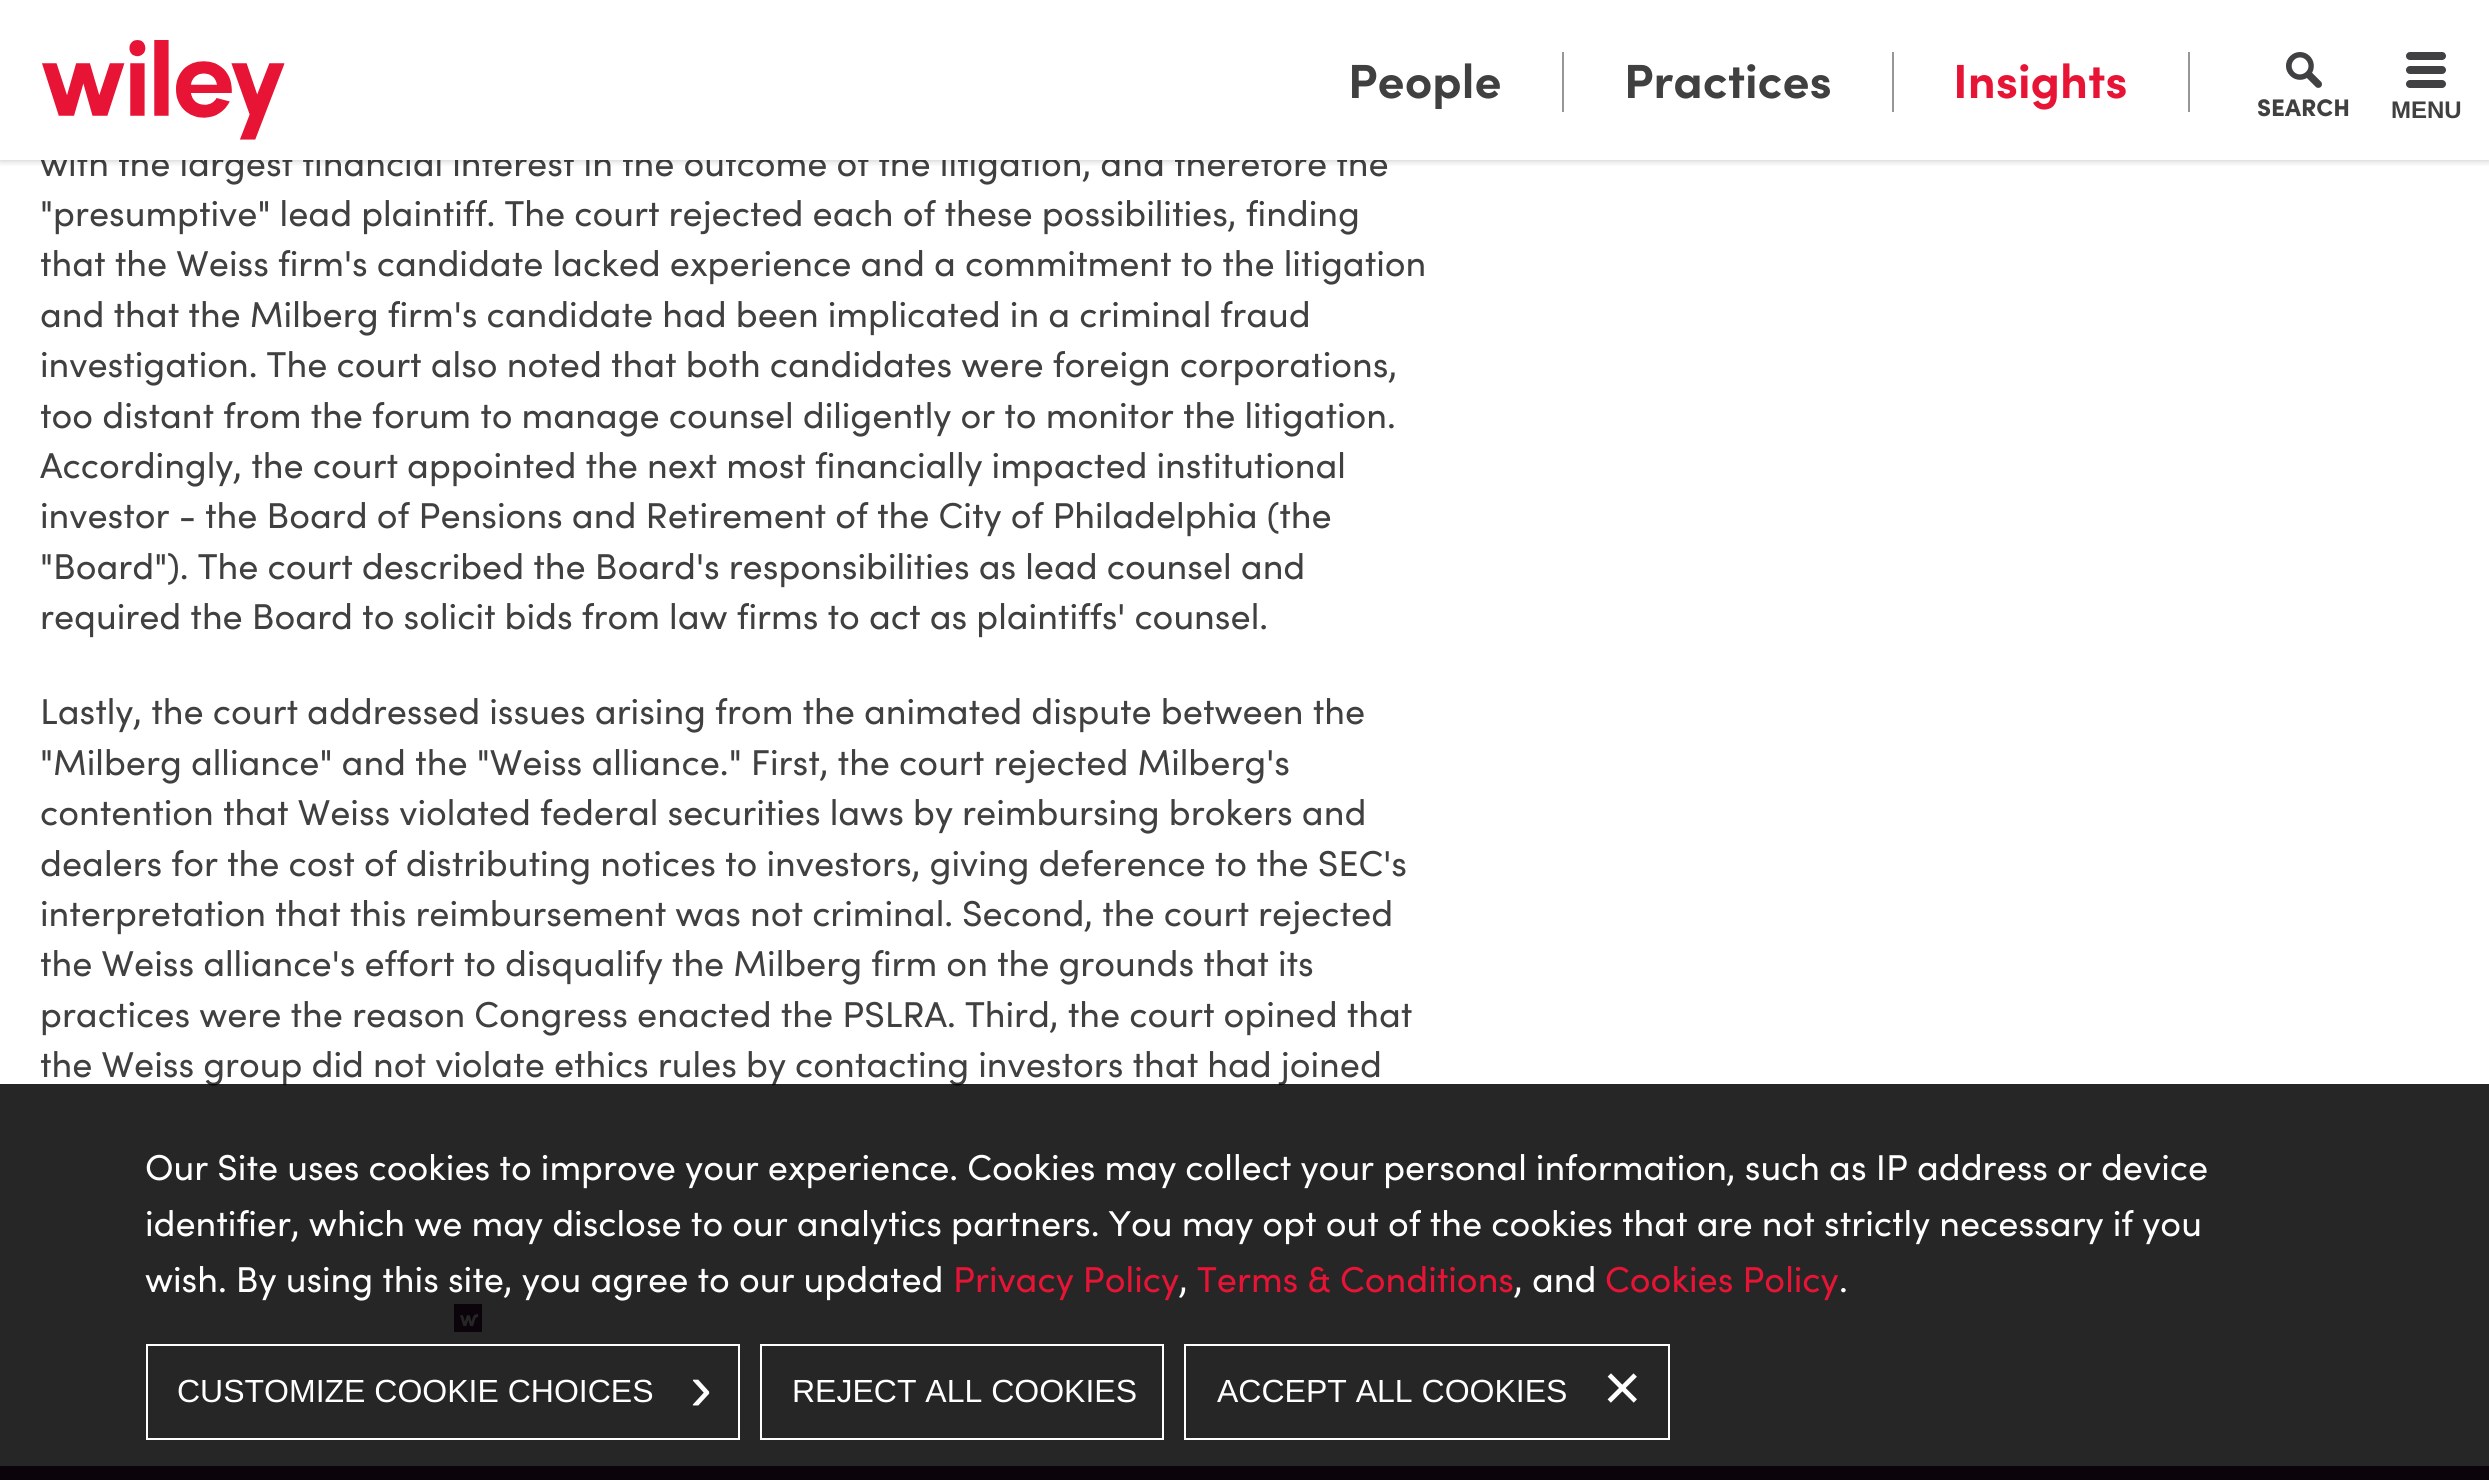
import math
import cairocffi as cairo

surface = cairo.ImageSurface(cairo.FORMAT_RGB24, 2489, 1480)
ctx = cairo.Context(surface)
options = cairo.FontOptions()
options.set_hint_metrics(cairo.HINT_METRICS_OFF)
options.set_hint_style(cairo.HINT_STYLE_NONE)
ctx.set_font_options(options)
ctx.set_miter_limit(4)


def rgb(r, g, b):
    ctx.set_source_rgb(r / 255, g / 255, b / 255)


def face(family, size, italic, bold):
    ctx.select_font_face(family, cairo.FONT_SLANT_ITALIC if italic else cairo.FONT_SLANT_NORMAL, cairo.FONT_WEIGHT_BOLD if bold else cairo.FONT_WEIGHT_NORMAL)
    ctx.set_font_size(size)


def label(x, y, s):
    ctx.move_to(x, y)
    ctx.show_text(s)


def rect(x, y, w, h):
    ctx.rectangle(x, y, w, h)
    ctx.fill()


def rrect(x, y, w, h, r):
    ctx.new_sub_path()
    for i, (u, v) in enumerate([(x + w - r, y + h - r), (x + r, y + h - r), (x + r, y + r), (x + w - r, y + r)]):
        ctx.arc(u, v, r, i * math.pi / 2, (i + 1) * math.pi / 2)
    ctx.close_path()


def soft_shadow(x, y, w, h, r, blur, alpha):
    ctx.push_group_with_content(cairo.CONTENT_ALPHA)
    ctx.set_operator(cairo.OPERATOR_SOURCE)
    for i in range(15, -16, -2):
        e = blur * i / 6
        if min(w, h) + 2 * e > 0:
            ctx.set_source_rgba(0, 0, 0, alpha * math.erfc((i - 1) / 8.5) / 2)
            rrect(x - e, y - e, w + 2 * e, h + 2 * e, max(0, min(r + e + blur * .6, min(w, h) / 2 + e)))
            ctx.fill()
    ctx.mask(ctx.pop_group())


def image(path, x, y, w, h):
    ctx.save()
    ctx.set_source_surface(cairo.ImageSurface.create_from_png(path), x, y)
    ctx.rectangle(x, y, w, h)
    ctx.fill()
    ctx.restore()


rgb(255, 255, 255)
ctx.paint()
face('Sofia', 36, 0, 0)
rgb(64, 64, 64)
label(40, 176, 'with the largest financial interest in the outcome of the litigation, and therefore the')
rgb(255, 255, 255)
rect(40, 150, 1344, 10)
ctx.save()
ctx.rectangle(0, 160, 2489, 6)
ctx.clip()
rgb(0, 0, 0)
soft_shadow(0, 0, 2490, 160, 0, 4, 0.25)
ctx.restore()
image('image0.png', 42, 40, 243, 100)
face('Sofia', 48, 0, 1)
rgb(64, 64, 64)
label(1348, 98, 'People')
rgb(151, 151, 151)
rect(1562, 52, 2, 60)
rgb(64, 64, 64)
label(1624, 98, 'Practices')
rgb(151, 151, 151)
rect(1892, 52, 2, 60)
rgb(231, 20, 53)
label(1953, 98, 'Insights')
rgb(151, 151, 151)
rect(2188, 52, 2, 60)
image('image1.png', 2286, 52, 36, 36)
face('Sofia Black', 24, 0, 0)
rgb(64, 64, 64)
label(2257, 116, 'SEARCH')
rgb(65, 64, 66)
rrect(2406, 52, 40, 8, 4)
ctx.fill()
rrect(2406, 66, 40, 8, 4)
ctx.fill()
rrect(2406, 80, 40, 8, 4)
ctx.fill()
face('Liberation Sans', 24, 0, 1)
rgb(64, 64, 64)
label(2391, 118, 'MENU')
face('Sofia', 36, 0, 0)
label(40, 226, '"presumptive" lead plaintiff. The court rejected each of these possibilities, finding')
label(40, 276, 'that the Weiss firm\'s candidate lacked experience and a commitment to the litigation')
label(40, 327, 'and that the Milberg firm\'s candidate had been implicated in a criminal fraud')
label(40, 377, 'investigation. The court also noted that both candidates were foreign corporations,')
label(40, 428, 'too distant from the forum to manage counsel diligently or to monitor the litigation.')
label(40, 478, 'Accordingly, the court appointed the next most financially impacted institutional')
label(40, 528, 'investor - the Board of Pensions and Retirement of the City of Philadelphia (the')
label(40, 579, '"Board"). The court described the Board\'s responsibilities as lead counsel and')
label(40, 629, 'required the Board to solicit bids from law firms to act as plaintiffs\' counsel.')
label(40, 724, 'Lastly, the court addressed issues arising from the animated dispute between the')
label(40, 775, '"Milberg alliance" and the "Weiss alliance." First, the court rejected Milberg\'s')
label(40, 825, 'contention that Weiss violated federal securities laws by reimbursing brokers and')
label(40, 876, 'dealers for the cost of distributing notices to investors, giving deference to the SEC\'s')
label(40, 926, 'interpretation that this reimbursement was not criminal. Second, the court rejected')
label(40, 976, 'the Weiss alliance\'s effort to disqualify the Milberg firm on the grounds that its')
label(40, 1027, 'practices were the reason Congress enacted the PSLRA. Third, the court opined that')
label(40, 1077, 'the Weiss group did not violate ethics rules by contacting investors that had joined')
rgb(73, 24, 64)
rect(454, 1304, 28, 28)
image('image2.png', 460, 1314, 18, 12)
rect(0, 1466, 2489, 14)
ctx.set_source_rgba(0, 0, 0, 0.85)
rect(0, 1084, 2489, 396)
rgb(255, 255, 255)
label(145, 1180, 'Our Site uses cookies to improve your experience. Cookies may collect your personal information, such as IP address or device')
label(145, 1236, 'identifier, which we may disclose to our analytics partners. You may opt out of the cookies that are not strictly necessary if you')
label(145, 1292, 'wish. By using this site, you agree to our updated')
rgb(231, 20, 53)
label(953, 1292, 'Privacy Policy')
rgb(255, 255, 255)
label(1179, 1292, ',')
rgb(231, 20, 53)
label(1197, 1292, 'Terms & Conditions')
rgb(255, 255, 255)
label(1514, 1292, ', and')
rgb(231, 20, 53)
label(1605, 1292, 'Cookies Policy')
rgb(255, 255, 255)
label(1839, 1292, '.')
ctx.rectangle(147, 1345, 592, 94)
ctx.stroke()
face('Liberation Sans', 32, 0, 0)
label(177, 1402, 'CUSTOMIZE COOKIE CHOICES')
face('Liberation Sans', 66, 0, 0)
label(690, 1410, '›')
ctx.rectangle(761, 1345, 402, 94)
ctx.stroke()
face('Liberation Sans', 32, 0, 0)
label(792, 1402, 'REJECT ALL COOKIES')
ctx.rectangle(1185, 1345, 484, 94)
ctx.stroke()
label(1217, 1402, 'ACCEPT ALL COOKIES')
face('Liberation Sans', 66, 0, 0)
label(1603, 1410, '×')
surface.write_to_png('render.png')
